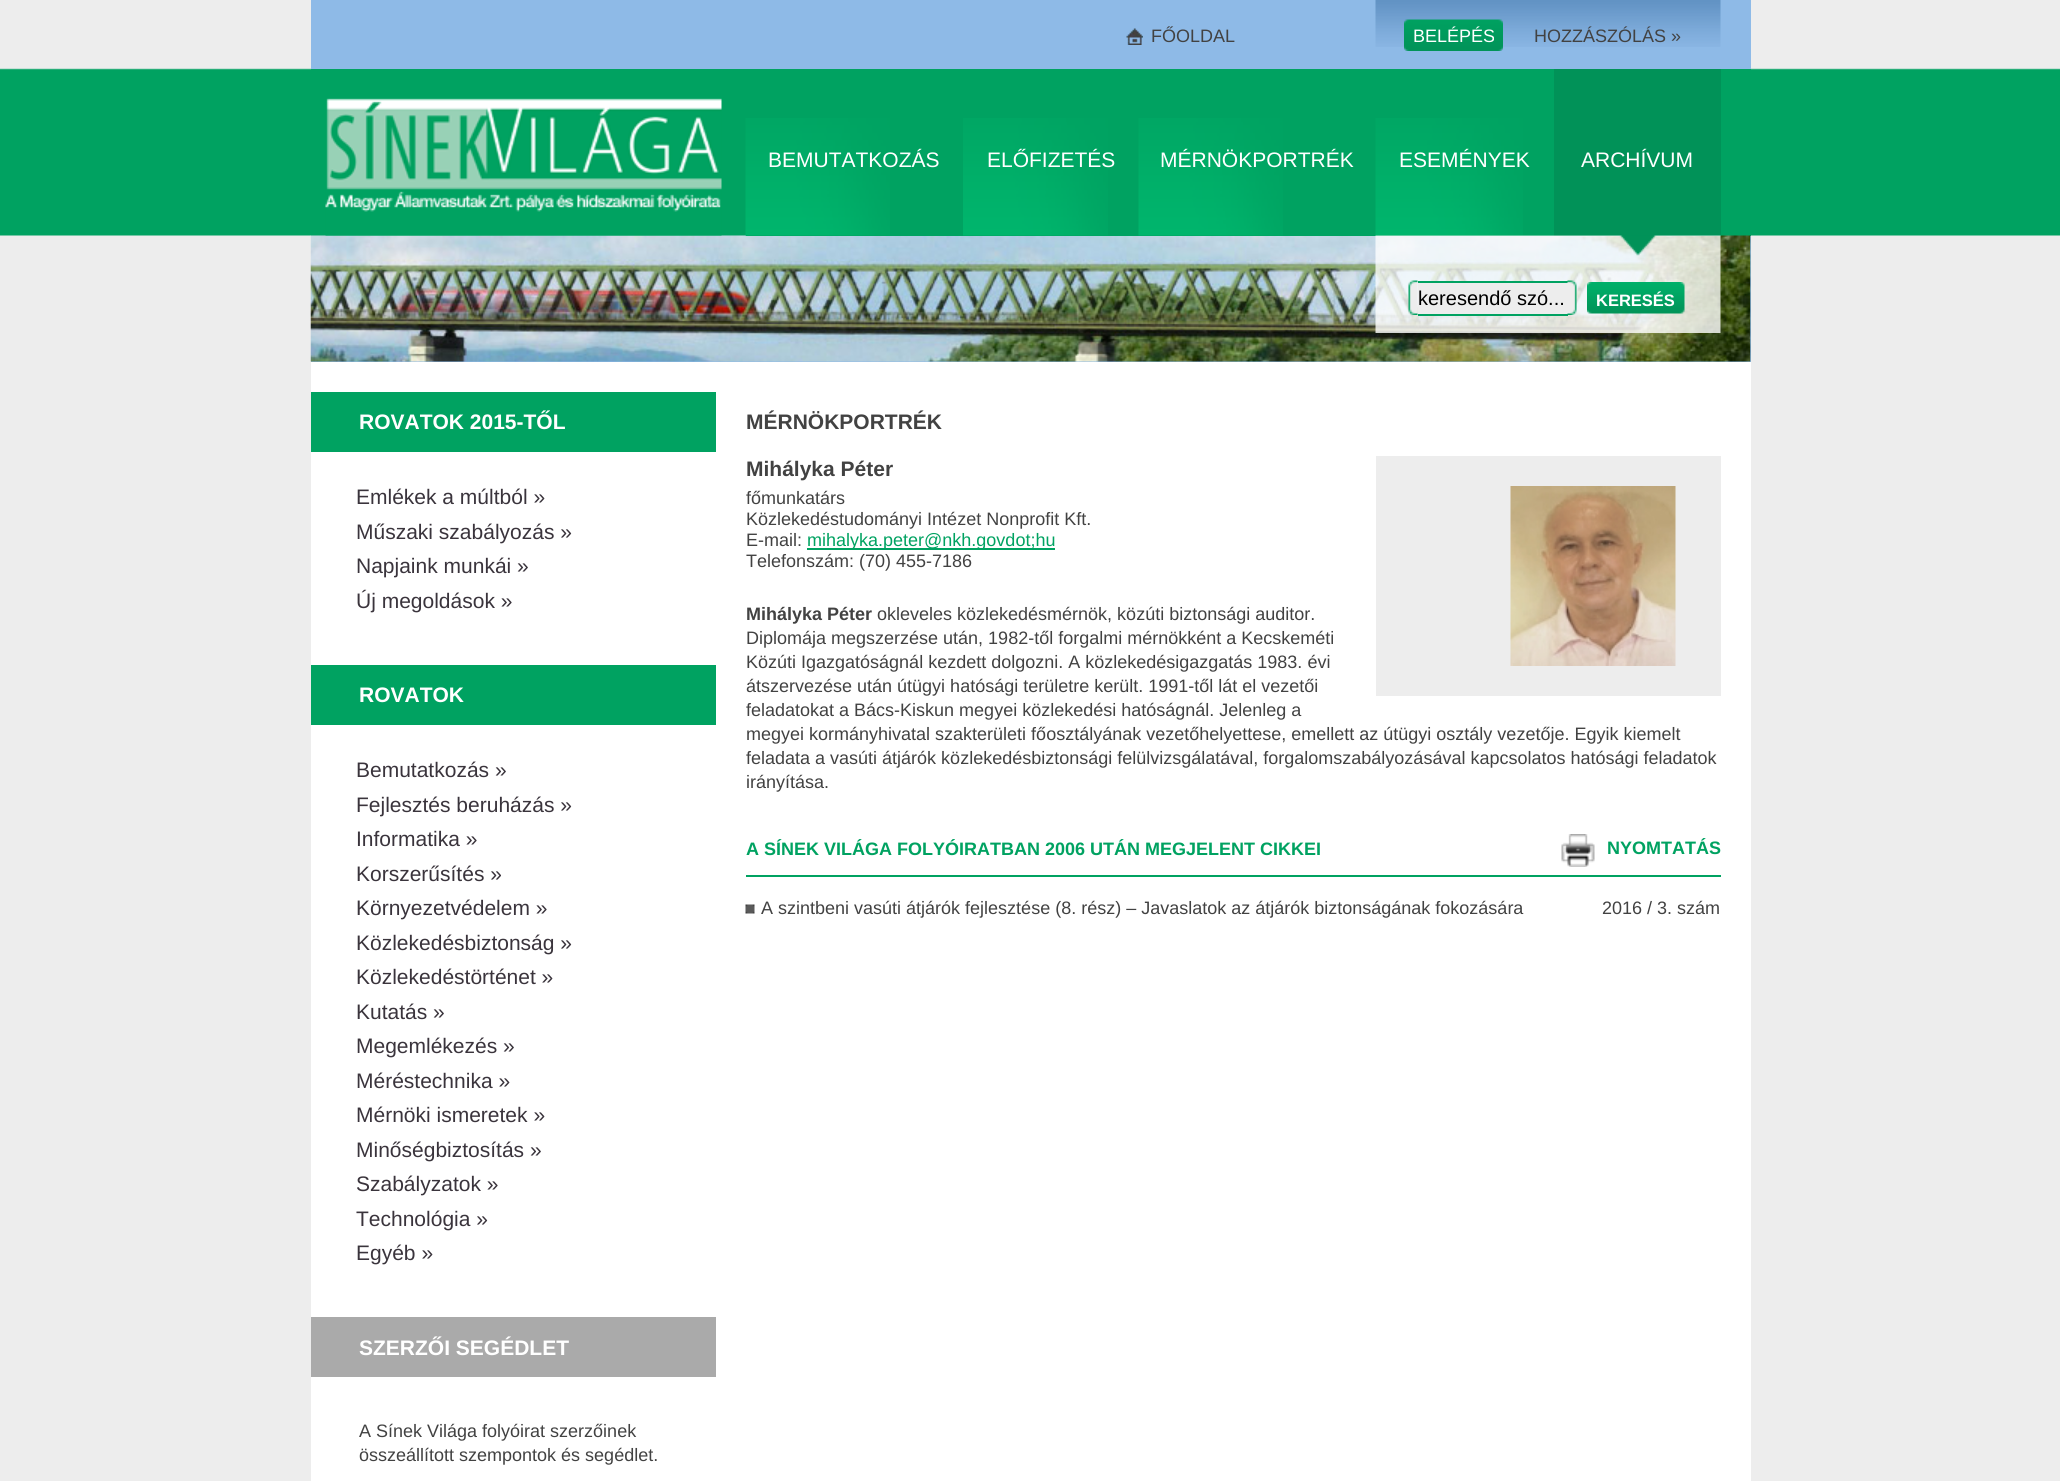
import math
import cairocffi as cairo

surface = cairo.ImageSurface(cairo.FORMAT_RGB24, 2060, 1481)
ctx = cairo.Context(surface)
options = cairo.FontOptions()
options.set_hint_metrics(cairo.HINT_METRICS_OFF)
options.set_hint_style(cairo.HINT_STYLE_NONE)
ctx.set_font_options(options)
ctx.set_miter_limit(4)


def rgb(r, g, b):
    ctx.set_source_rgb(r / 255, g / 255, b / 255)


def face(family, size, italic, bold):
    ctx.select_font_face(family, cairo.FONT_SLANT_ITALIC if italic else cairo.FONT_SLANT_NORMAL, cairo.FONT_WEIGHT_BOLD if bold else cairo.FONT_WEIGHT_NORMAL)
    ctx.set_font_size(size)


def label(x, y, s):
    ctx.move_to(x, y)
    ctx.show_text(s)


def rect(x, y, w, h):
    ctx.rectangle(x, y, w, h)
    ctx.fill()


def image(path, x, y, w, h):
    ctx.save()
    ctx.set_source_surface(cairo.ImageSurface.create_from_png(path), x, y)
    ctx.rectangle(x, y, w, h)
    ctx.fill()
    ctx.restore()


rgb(237, 237, 237)
ctx.paint()
image('image0.png', 0, 68, 2060, 168)
rgb(255, 255, 255)
rect(311, 362, 1440, 1119)
rgb(142, 186, 231)
rect(311, 0, 1440, 69)
image('image1.png', 1375, 0, 346, 47)
image('image2.png', 1126, 28, 17, 17)
face('Liberation Sans', 18, 0, 0)
rgb(66, 66, 66)
label(1151, 42, 'FŐOLDAL')
image('image3.png', 1404, 19, 9, 32)
image('image4.png', 1413, 19, 81, 32)
rgb(255, 255, 255)
label(1413, 42, 'BELÉPÉS')
image('image5.png', 1494, 19, 9, 32)
rgb(66, 66, 66)
label(1534, 42, 'HOZZÁSZÓLÁS »')
rgb(0, 162, 97)
rect(311, 69, 1440, 167)
rgb(142, 186, 231)
rect(311, 236, 1440, 126)
image('image11.png', 310, 235, 1441, 127)
image('image6.png', 325, 98, 397, 138)
rgb(0, 162, 97)
rect(746, 235, 808, 1)
image('image7.png', 745, 118, 145, 118)
face('Liberation Sans', 21, 0, 0)
rgb(255, 255, 255)
label(768, 167, 'BEMUTATKOZÁS')
image('image8.png', 963, 118, 145, 118)
label(987, 167, 'ELŐFIZETÉS')
image('image9.png', 1138, 118, 145, 118)
label(1160, 167, 'MÉRNÖKPORTRÉK')
image('image10.png', 1375, 118, 148, 118)
label(1399, 167, 'ESEMÉNYEK')
rgb(1, 146, 88)
rect(1554, 69, 167, 167)
rgb(255, 255, 255)
label(1581, 167, 'ARCHÍVUM')
image('image12.png', 1375, 235, 346, 98)
image('image13.png', 1408, 280, 10, 35)
rgb(237, 237, 237)
rect(1418, 283, 150, 31)
rgb(0, 162, 97)
rect(1418, 281, 150, 2)
rect(1418, 314, 150, 2)
face('Liberation Sans', 20, 0, 0)
rgb(0, 0, 0)
label(1418, 305, 'keresendő szó...')
image('image14.png', 1567, 280, 10, 35)
image('image15.png', 1587, 282, 98, 32)
face('Liberation Sans', 16.5, 0, 1)
rgb(255, 255, 255)
label(1596, 306, 'KERESÉS')
rgb(0, 162, 97)
rect(311, 392, 405, 60)
face('Liberation Sans', 21, 0, 1)
rgb(255, 255, 255)
label(359, 429, 'ROVATOK 2015-TŐL')
face('Liberation Sans', 21, 0, 0)
rgb(58, 52, 60)
label(356, 504, 'Emlékek a múltból »')
label(356, 539, 'Műszaki szabályozás »')
label(356, 573, 'Napjaink munkái »')
label(356, 608, 'Új megoldások »')
rgb(0, 162, 97)
rect(311, 665, 405, 60)
face('Liberation Sans', 21, 0, 1)
rgb(255, 255, 255)
label(359, 702, 'ROVATOK')
face('Liberation Sans', 21, 0, 0)
rgb(58, 52, 60)
label(356, 777, 'Bemutatkozás »')
label(356, 812, 'Fejlesztés beruházás »')
label(356, 846, 'Informatika »')
label(356, 881, 'Korszerűsítés »')
label(356, 915, 'Környezetvédelem »')
label(356, 950, 'Közlekedésbiztonság »')
label(356, 984, 'Közlekedéstörténet »')
label(356, 1019, 'Kutatás »')
label(356, 1053, 'Megemlékezés »')
label(356, 1088, 'Méréstechnika »')
label(356, 1122, 'Mérnöki ismeretek »')
label(356, 1157, 'Minőségbiztosítás »')
label(356, 1191, 'Szabályzatok »')
label(356, 1226, 'Technológia »')
label(356, 1260, 'Egyéb »')
rgb(170, 170, 170)
rect(311, 1317, 405, 60)
face('Liberation Sans', 21, 0, 1)
rgb(255, 255, 255)
label(359, 1355, 'SZERZŐI SEGÉDLET')
face('Liberation Sans', 18, 0, 0)
rgb(66, 66, 66)
label(359, 1437, 'A Sínek Világa folyóirat szerzőinek')
label(359, 1461, 'összeállított szempontok és segédlet.')
face('Liberation Sans', 21, 0, 1)
label(746, 429, 'MÉRNÖKPORTRÉK')
label(746, 476, 'Mihályka Péter')
rgb(237, 237, 237)
rect(1376, 456, 345, 240)
image('image16.png', 1510, 486, 166, 180)
face('Liberation Sans', 18, 0, 0)
rgb(66, 66, 66)
label(746, 504, 'főmunkatárs')
label(746, 525, 'Közlekedéstudományi Intézet Nonprofit Kft.')
label(746, 546, 'E-mail:')
rgb(0, 162, 97)
rect(807, 548, 248, 2)
label(807, 546, 'mihalyka.peter@nkh.govdot;hu')
rgb(66, 66, 66)
label(746, 567, 'Telefonszám: (70) 455-7186')
face('Liberation Sans', 18, 0, 1)
label(746, 620, 'Mihályka Péter')
face('Liberation Sans', 18, 0, 0)
label(877, 620, 'okleveles közlekedésmérnök, közúti biztonsági auditor.')
label(746, 644, 'Diplomája megszerzése után, 1982-től forgalmi mérnökként a Kecskeméti')
label(746, 668, 'Közúti Igazgatóságnál kezdett dolgozni. A közlekedésigazgatás 1983. évi')
label(746, 692, 'átszervezése után útügyi hatósági területre került. 1991-től lát el vezetői')
label(746, 716, 'feladatokat a Bács-Kiskun megyei közlekedési hatóságnál. Jelenleg a')
label(746, 740, 'megyei kormányhivatal szakterületi főosztályának vezetőhelyettese, emellett az útügyi osztály vezetője. Egyik kiemelt')
label(746, 764, 'feladata a vasúti átjárók közlekedésbiztonsági felülvizsgálatával, forgalomszabályozásával kapcsolatos hatósági feladatok')
label(746, 788, 'irányítása.')
rgb(0, 162, 97)
rect(746, 875, 975, 2)
face('Liberation Sans', 18, 0, 1)
label(746, 855, 'A SÍNEK VILÁGA FOLYÓIRATBAN 2006 UTÁN MEGJELENT CIKKEI')
image('image17.png', 1561, 834, 34, 33)
label(1607, 854, 'NYOMTATÁS')
image('image18.png', 745, 904, 10, 10)
face('Liberation Sans', 18, 0, 0)
rgb(66, 66, 66)
label(761, 914, 'A szintbeni vasúti átjárók fejlesztése (8. rész) – Javaslatok az átjárók biztonságának fokozására')
label(1602, 914, '2016 / 3. szám')
surface.write_to_png('render.png')
